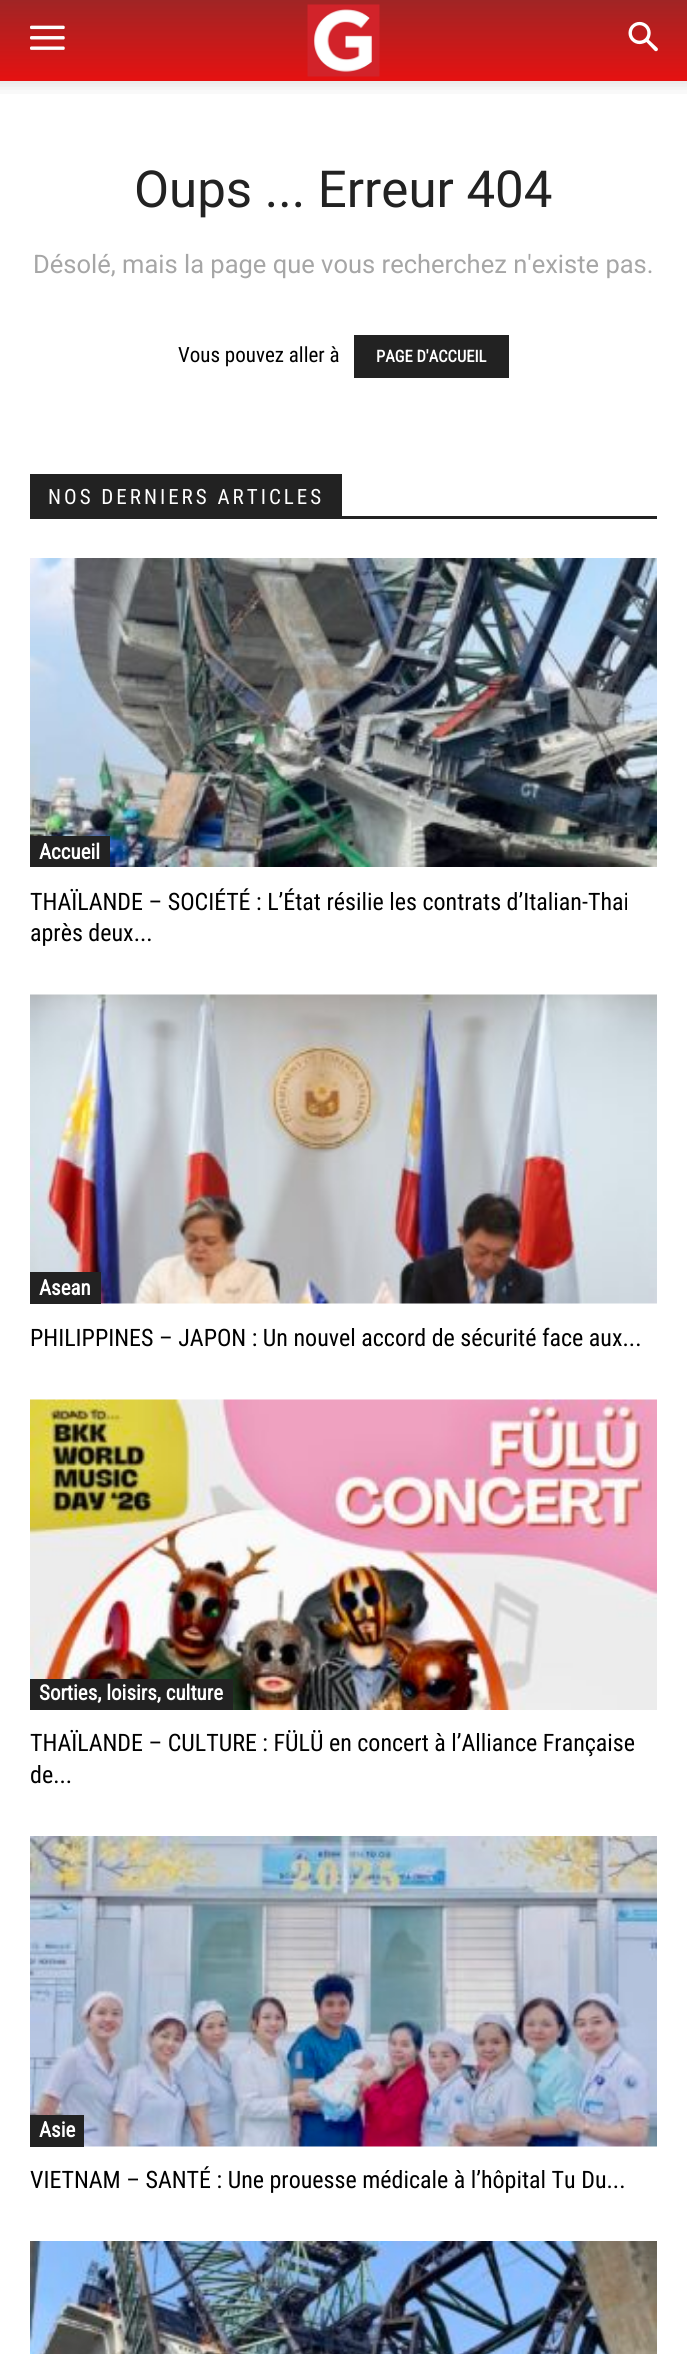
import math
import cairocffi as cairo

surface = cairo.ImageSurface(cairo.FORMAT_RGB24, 687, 2354)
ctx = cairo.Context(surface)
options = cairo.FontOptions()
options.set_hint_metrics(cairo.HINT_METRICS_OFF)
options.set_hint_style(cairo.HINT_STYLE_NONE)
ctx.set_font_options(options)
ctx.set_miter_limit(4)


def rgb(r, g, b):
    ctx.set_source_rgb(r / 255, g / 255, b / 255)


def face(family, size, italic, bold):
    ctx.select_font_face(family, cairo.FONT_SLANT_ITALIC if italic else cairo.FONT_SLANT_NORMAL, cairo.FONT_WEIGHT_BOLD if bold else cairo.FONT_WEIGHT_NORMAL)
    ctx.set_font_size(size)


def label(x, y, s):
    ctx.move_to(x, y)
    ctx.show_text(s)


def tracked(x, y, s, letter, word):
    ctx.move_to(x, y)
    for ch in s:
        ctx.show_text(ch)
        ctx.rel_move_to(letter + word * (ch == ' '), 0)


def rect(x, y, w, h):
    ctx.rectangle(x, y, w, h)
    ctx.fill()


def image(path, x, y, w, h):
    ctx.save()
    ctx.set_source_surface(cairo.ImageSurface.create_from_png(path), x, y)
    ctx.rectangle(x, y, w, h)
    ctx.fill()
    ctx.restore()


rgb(255, 255, 255)
ctx.paint()
gradient = cairo.LinearGradient(344, 81, 344, 0)
gradient.add_color_stop_rgba(0, 0.902, 0.067, 0.067, 1)
gradient.add_color_stop_rgba(1, 0.627, 0.145, 0.145, 1)
ctx.set_source(gradient)
rect(0, 0, 687, 81)
image('image0.png', 30, 25, 35, 25)
image('image1.png', 307, 4, 73, 73)
image('image2.png', 628, 21, 30, 31)
image('image3.png', 0, 81, 687, 13)
face('Roboto', 51, 0, 0)
rgb(34, 34, 34)
label(134, 207, 'Oups ... Erreur 404')
face('Roboto', 25.5, 0, 0)
rgb(166, 166, 166)
label(33, 273, 'Désolé, mais la page que vous recherchez n\'existe pas.')
face('Roboto Condensed', 21, 0, 0)
rgb(0, 0, 0)
label(178, 362, 'Vous pouvez aller à')
rgb(34, 34, 34)
rect(354, 335, 155, 43)
face('Roboto Condensed', 16.5, 0, 1)
rgb(255, 255, 255)
label(376, 362, 'PAGE D\'ACCUEIL')
rgb(34, 34, 34)
rect(30, 516, 627, 3)
rect(30, 474, 312, 42)
face('Roboto Condensed', 21, 0, 0)
rgb(255, 255, 255)
tracked(48, 504, 'NOS DERNIERS ARTICLES', 3, 0)
image('image4.png', 30, 558, 627, 309)
rgb(34, 34, 34)
rect(30, 836, 80, 31)
face('Roboto Condensed', 21, 0, 1)
rgb(255, 255, 255)
label(39, 859, 'Accueil')
face('Roboto Condensed', 24, 0, 0)
rgb(0, 0, 0)
label(30, 910, 'THAÏLANDE – SOCIÉTÉ : L’État résilie les contrats d’Italian-Thai')
label(30, 941, 'après deux...')
image('image5.png', 30, 994, 627, 310)
rgb(34, 34, 34)
rect(30, 1272, 71, 32)
face('Roboto Condensed', 21, 0, 1)
rgb(255, 255, 255)
label(39, 1295, 'Asean')
face('Roboto Condensed', 24, 0, 0)
rgb(0, 0, 0)
label(30, 1346, 'PHILIPPINES – JAPON : Un nouvel accord de sécurité face aux...')
image('image6.png', 30, 1399, 627, 311)
rgb(34, 34, 34)
rect(30, 1679, 203, 31)
face('Roboto Condensed', 21, 0, 1)
rgb(255, 255, 255)
label(39, 1700, 'Sorties, loisirs, culture')
face('Roboto Condensed', 24, 0, 0)
rgb(0, 0, 0)
label(30, 1751, 'THAÏLANDE – CULTURE : FÜLÜ en concert à l’Alliance Française')
label(30, 1783, 'de...')
image('image7.png', 30, 1836, 627, 311)
rgb(34, 34, 34)
rect(30, 2115, 54, 32)
face('Roboto Condensed', 21, 0, 1)
rgb(255, 255, 255)
label(39, 2137, 'Asie')
face('Roboto Condensed', 24, 0, 0)
rgb(0, 0, 0)
label(30, 2188, 'VIETNAM – SANTÉ : Une prouesse médicale à l’hôpital Tu Du...')
image('image8.png', 30, 2241, 627, 113)
surface.write_to_png('render.png')
